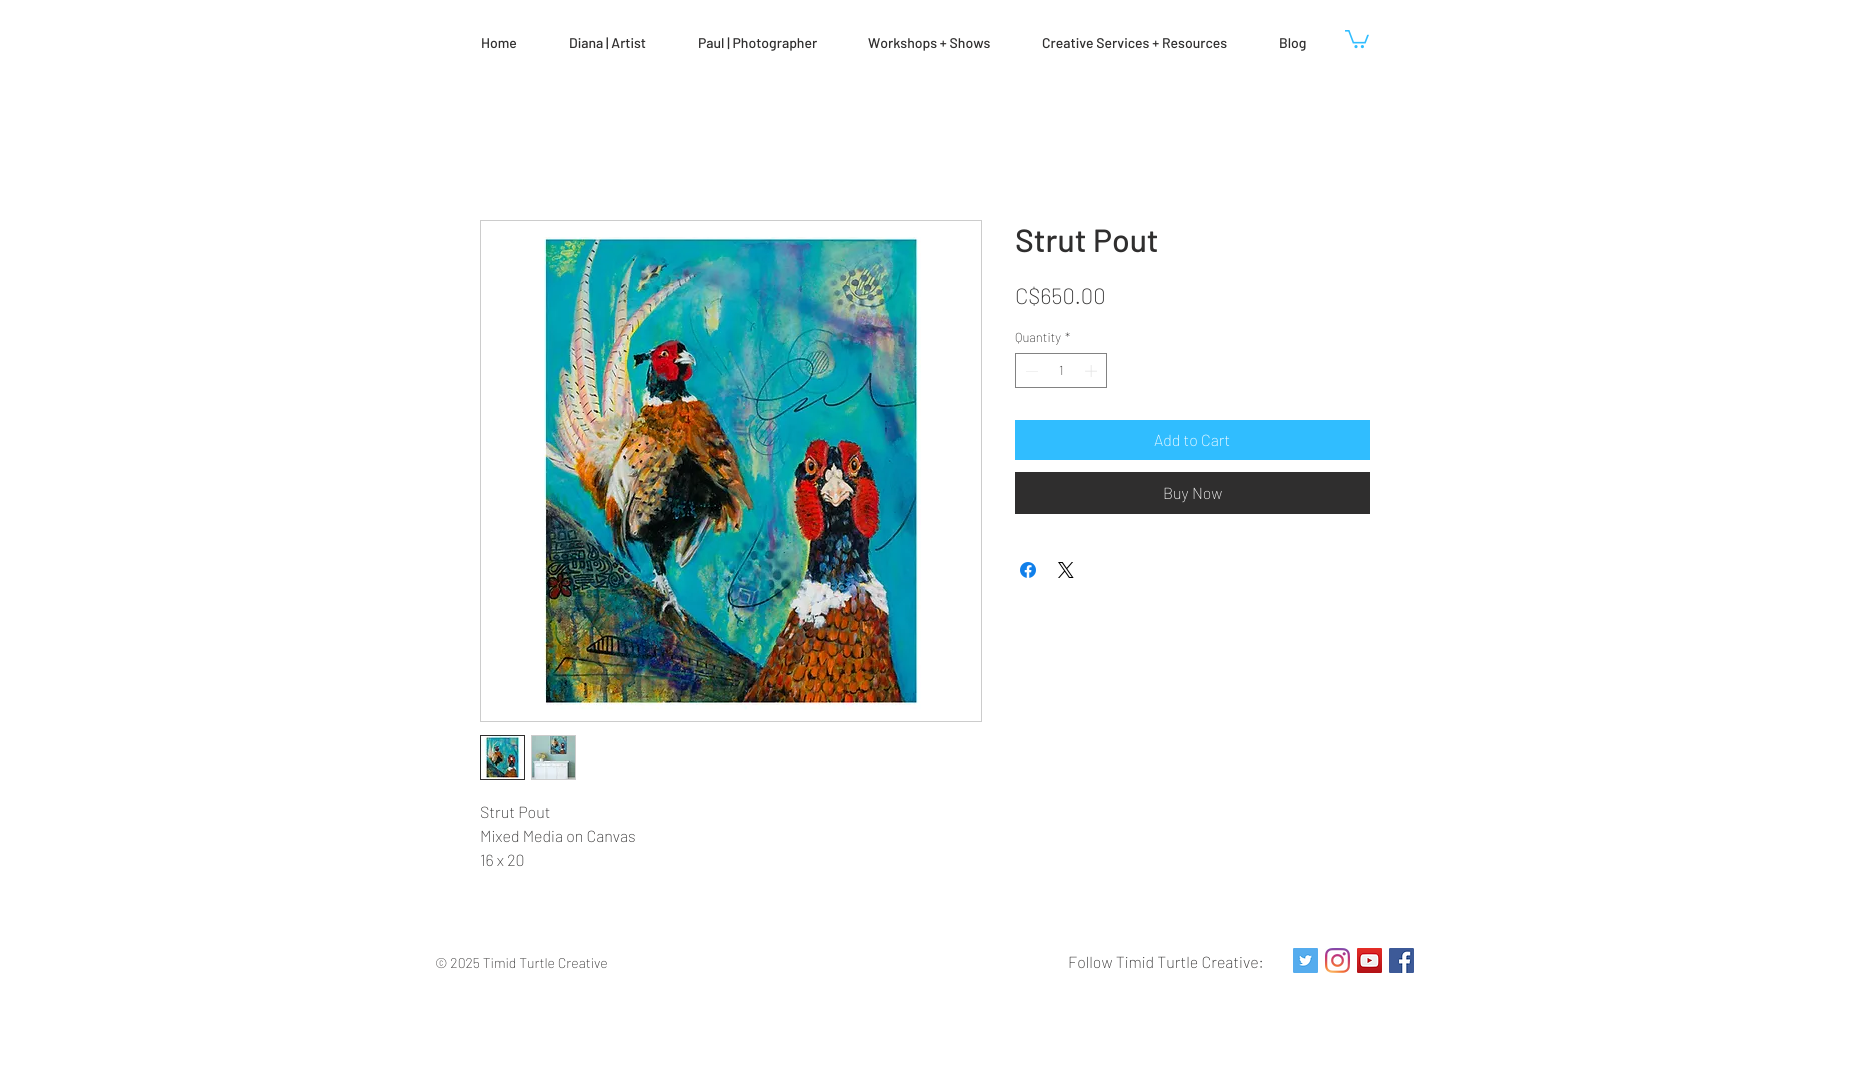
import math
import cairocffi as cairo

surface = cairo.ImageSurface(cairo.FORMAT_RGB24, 1850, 1087)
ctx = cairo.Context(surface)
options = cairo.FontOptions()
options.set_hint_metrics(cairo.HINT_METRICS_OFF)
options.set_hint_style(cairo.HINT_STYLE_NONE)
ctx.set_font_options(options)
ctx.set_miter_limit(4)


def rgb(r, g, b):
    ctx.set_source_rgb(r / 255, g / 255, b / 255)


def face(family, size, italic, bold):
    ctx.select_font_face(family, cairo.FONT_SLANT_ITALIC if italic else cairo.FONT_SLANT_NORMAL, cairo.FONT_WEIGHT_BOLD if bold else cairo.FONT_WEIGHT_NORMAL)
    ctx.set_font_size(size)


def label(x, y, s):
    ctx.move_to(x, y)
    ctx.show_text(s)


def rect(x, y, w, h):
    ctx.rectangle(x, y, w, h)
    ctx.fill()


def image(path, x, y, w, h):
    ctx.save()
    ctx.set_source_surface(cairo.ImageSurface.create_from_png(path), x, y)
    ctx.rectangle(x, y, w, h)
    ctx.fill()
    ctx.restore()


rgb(255, 255, 255)
ctx.paint()
face('Barlow Medium', 14, 0, 0)
rgb(47, 46, 46)
label(481, 48, 'Home')
label(569, 48, 'Diana | Artist')
label(698, 48, 'Paul | Photographer')
label(868, 48, 'Workshops + Shows')
label(1042, 48, 'Creative Services + Resources')
label(1279, 48, 'Blog')
image('image0.png', 1345, 30, 24, 19)
face('Barlow Medium', 32, 0, 0)
label(1015, 252, 'Strut Pout')
face('Barlow ExtraLight', 22, 0, 0)
label(1015, 304, 'C$650.00')
face('Barlow ExtraLight', 13, 0, 0)
label(1015, 342, 'Quantity')
label(1065, 342, '*')
ctx.rectangle(1015.5, 353.5, 91, 34)
rgb(130, 130, 130)
ctx.set_line_width(1)
ctx.stroke()
rgb(227, 227, 227)
ctx.set_fill_rule(cairo.FILL_RULE_EVEN_ODD)
ctx.new_path()
ctx.move_to(1038, 371)
ctx.line_to(1038, 371.5)
ctx.line_to(1026, 371.5)
ctx.line_to(1026, 371)
ctx.close_path()
ctx.fill()
rgb(47, 46, 46)
label(1059, 375, '1')
image('image1.png', 1085, 365, 12, 12)
rgb(48, 189, 255)
rect(1015, 420, 355, 40)
face('Barlow ExtraLight', 16, 0, 0)
rgb(255, 255, 255)
label(1154, 446, 'Add to Cart')
rgb(47, 46, 46)
rect(1015, 472, 355, 42)
rgb(255, 255, 255)
label(1163, 499, 'Buy Now')
image('image2.png', 1020, 562, 16, 16)
image('image3.png', 1058, 562, 16, 16)
ctx.rectangle(480.5, 220.5, 501, 501)
rgb(204, 204, 204)
ctx.stroke()
image('image4.png', 542, 237, 379, 473)
ctx.rectangle(480.5, 735.5, 44, 44)
rgb(47, 46, 46)
ctx.stroke()
image('image5.png', 481, 736, 43, 43)
rgb(204, 204, 204)
rect(531, 735, 45, 45)
image('image6.png', 532, 736, 43, 43)
rgb(47, 46, 46)
label(480, 818, 'Strut Pout')
label(480, 842, 'Mixed Media on Canvas')
label(480, 866, '16 x 20')
face('Barlow ExtraLight', 14, 0, 0)
label(435, 968, '© 2025 Timid Turtle Creative')
face('Barlow ExtraLight', 16, 0, 0)
label(1068, 968, 'Follow Timid Turtle Creative:')
image('image7.png', 1293, 948, 25, 25)
image('image8.png', 1325, 948, 25, 25)
image('image9.png', 1357, 948, 25, 25)
image('image10.png', 1389, 948, 25, 25)
surface.write_to_png('render.png')
